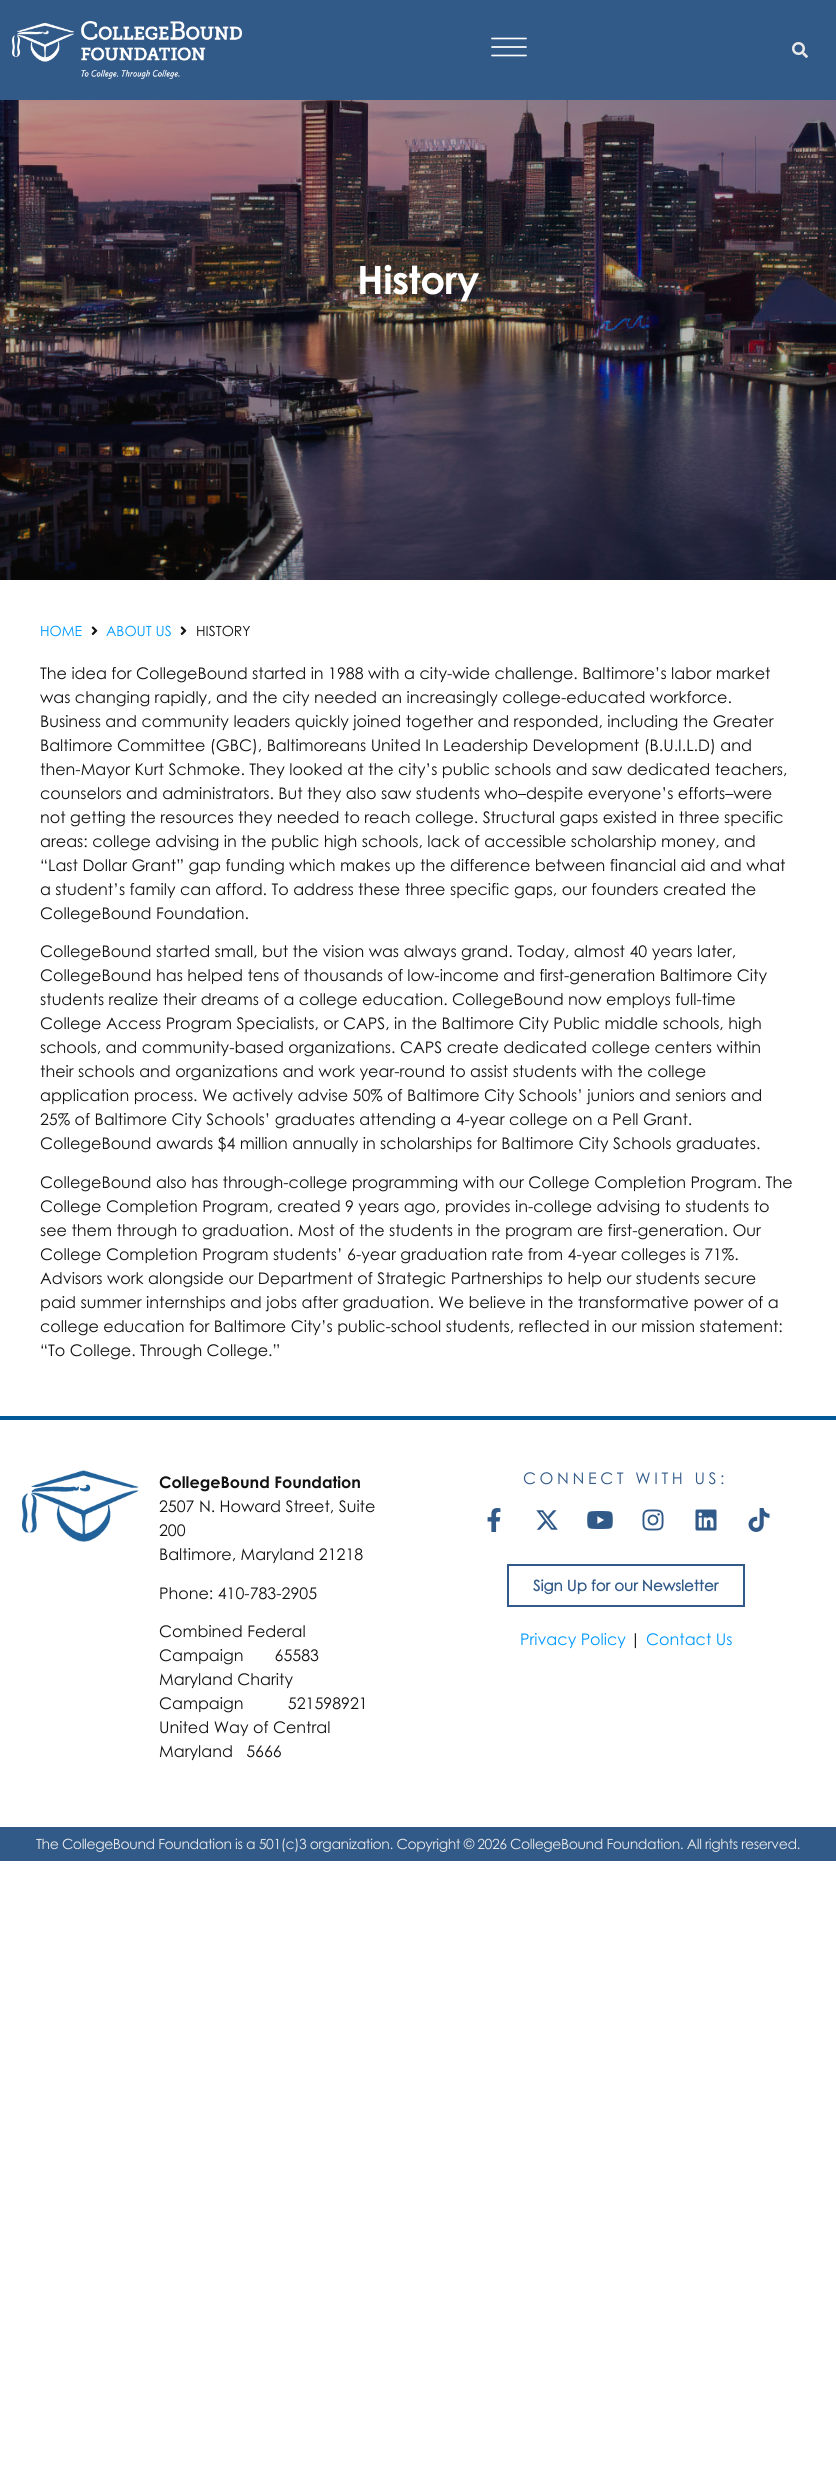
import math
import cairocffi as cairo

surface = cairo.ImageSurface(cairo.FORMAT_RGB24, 836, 2475)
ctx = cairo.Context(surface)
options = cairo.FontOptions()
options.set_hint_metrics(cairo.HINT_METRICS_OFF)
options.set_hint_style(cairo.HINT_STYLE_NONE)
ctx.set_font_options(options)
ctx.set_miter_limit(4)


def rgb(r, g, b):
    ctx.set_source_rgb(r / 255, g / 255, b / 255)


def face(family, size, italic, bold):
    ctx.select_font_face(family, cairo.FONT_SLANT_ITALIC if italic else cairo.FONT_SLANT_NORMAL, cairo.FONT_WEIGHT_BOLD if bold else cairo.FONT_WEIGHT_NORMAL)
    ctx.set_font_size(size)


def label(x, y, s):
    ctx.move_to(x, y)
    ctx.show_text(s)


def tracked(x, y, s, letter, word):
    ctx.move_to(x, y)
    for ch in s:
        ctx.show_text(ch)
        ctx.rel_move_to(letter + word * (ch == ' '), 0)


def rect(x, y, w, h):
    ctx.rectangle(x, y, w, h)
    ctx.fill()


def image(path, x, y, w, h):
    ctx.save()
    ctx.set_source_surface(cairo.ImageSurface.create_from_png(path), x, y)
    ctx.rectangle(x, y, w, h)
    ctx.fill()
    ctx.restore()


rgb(255, 255, 255)
ctx.paint()
rgb(50, 90, 137)
rect(0, 0, 836, 100)
image('image0.png', 12, 21, 230, 58)
ctx.new_path()
ctx.move_to(492, 38.5)
ctx.line_to(526, 38.5)
ctx.move_to(492, 47)
ctx.line_to(526, 47)
ctx.move_to(492, 55.5)
ctx.line_to(526, 55.5)
rgb(255, 255, 255)
ctx.set_line_width(1.7)
ctx.set_line_cap(cairo.LINE_CAP_ROUND)
ctx.set_line_join(cairo.LINE_JOIN_ROUND)
ctx.stroke()
image('image1.png', 792, 42, 16, 16)
image('image2.png', 0, 100, 836, 480)
face('Century Gothic', 39, 0, 1)
tracked(357, 294, 'History', -0.4, 0)
face('Century Gothic', 14, 0, 0)
rgb(0, 153, 255)
label(40, 636, 'HOME')
image('image3.png', 91, 626, 7, 10)
label(106, 636, 'ABOUT US')
image('image3.png', 180, 626, 7, 10)
rgb(18, 18, 18)
label(196, 636, 'HISTORY')
face('Century Gothic', 16, 0, 0)
label(40, 679, 'The idea for CollegeBound started in 1988 with a city-wide challenge. Baltimore’s labor market')
label(40, 703, 'was changing rapidly, and the city needed an increasingly college-educated workforce.')
label(40, 727, 'Business and community leaders quickly joined together and responded, including the Greater')
label(40, 751, 'Baltimore Committee (GBC), Baltimoreans United In Leadership Development (B.U.I.L.D) and')
label(40, 775, 'then-Mayor Kurt Schmoke. They looked at the city’s public schools and saw dedicated teachers,')
label(40, 799, 'counselors and administrators. But they also saw students who–despite everyone’s efforts–were')
label(40, 823, 'not getting the resources they needed to reach college. Structural gaps existed in three specific')
label(40, 847, 'areas: college advising in the public high schools, lack of accessible scholarship money, and')
label(40, 871, '“Last Dollar Grant” gap funding which makes up the difference between financial aid and what')
label(40, 895, 'a student’s family can afford. To address these three specific gaps, our founders created the')
label(40, 919, 'CollegeBound Foundation.')
label(40, 957, 'CollegeBound started small, but the vision was always grand. Today, almost 40 years later,')
label(40, 981, 'CollegeBound has helped tens of thousands of low-income and first-generation Baltimore City')
label(40, 1005, 'students realize their dreams of a college education. CollegeBound now employs full-time')
label(40, 1029, 'College Access Program Specialists, or CAPS, in the Baltimore City Public middle schools, high')
label(40, 1053, 'schools, and community-based organizations. CAPS create dedicated college centers within')
label(40, 1077, 'their schools and organizations and work year-round to assist students with the college')
label(40, 1101, 'application process. We actively advise 50% of Baltimore City Schools’ juniors and seniors and')
label(40, 1125, '25% of Baltimore City Schools’ graduates attending a 4-year college on a Pell Grant.')
label(40, 1149, 'CollegeBound awards $4 million annually in scholarships for Baltimore City Schools graduates.')
label(40, 1188, 'CollegeBound also has through-college programming with our College Completion Program. The')
label(40, 1212, 'College Completion Program, created 9 years ago, provides in-college advising to students to')
label(40, 1236, 'see them through to graduation. Most of the students in the program are first-generation. Our')
label(40, 1260, 'College Completion Program students’ 6-year graduation rate from 4-year colleges is 71%.')
label(40, 1284, 'Advisors work alongside our Department of Strategic Partnerships to help our students secure')
label(40, 1308, 'paid summer internships and jobs after graduation. We believe in the transformative power of a')
label(40, 1332, 'college education for Baltimore City’s public-school students, reflected in our mission statement:')
label(40, 1356, '“To College. Through College.”')
rgb(1, 89, 152)
rect(0, 1416, 836, 4)
image('image4.png', 22, 1470, 117, 72)
face('Century Gothic', 16, 0, 1)
rgb(18, 18, 18)
label(159, 1488, 'CollegeBound Foundation')
face('Century Gothic', 16, 0, 0)
label(159, 1512, '2507 N. Howard Street, Suite')
label(159, 1536, '200')
label(159, 1560, 'Baltimore, Maryland 21218')
label(159, 1599, 'Phone: 410-783-2905')
label(159, 1637, 'Combined Federal')
label(159, 1661, 'Campaign       65583')
label(159, 1685, 'Maryland Charity')
label(159, 1709, 'Campaign          521598921')
label(159, 1733, 'United Way of Central')
label(159, 1757, 'Maryland   5666')
rgb(50, 90, 137)
tracked(523, 1484, 'CONNECT WITH US:', 3.6, 0)
image('image5.png', 487, 1508, 14, 24)
image('image6.png', 536, 1510, 22, 20)
image('image7.png', 587, 1511, 26, 18)
image('image8.png', 642, 1509, 22, 22)
image('image9.png', 695, 1509, 22, 22)
image('image10.png', 748, 1508, 22, 24)
ctx.rectangle(508, 1565, 236, 41)
ctx.set_line_width(2)
ctx.set_line_cap(cairo.LINE_CAP_BUTT)
ctx.set_line_join(cairo.LINE_JOIN_MITER)
ctx.stroke()
face('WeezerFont', 15, 0, 1)
label(533, 1591, 'Sign Up for our Newsletter')
face('Century Gothic', 16, 0, 0)
rgb(0, 153, 255)
label(520, 1645, 'Privacy Policy')
rgb(18, 18, 18)
label(630, 1645, '|')
rgb(0, 153, 255)
label(646, 1645, 'Contact Us')
rgb(50, 90, 137)
rect(0, 1827, 836, 34)
face('Century Gothic', 14, 0, 0)
rgb(234, 234, 234)
tracked(36, 1849, 'The CollegeBound Foundation is a 501(c)3 organization. Copyright © 2026 CollegeBound Foundation. All rights reserved.', -0.4, 0)
surface.write_to_png('render.png')
